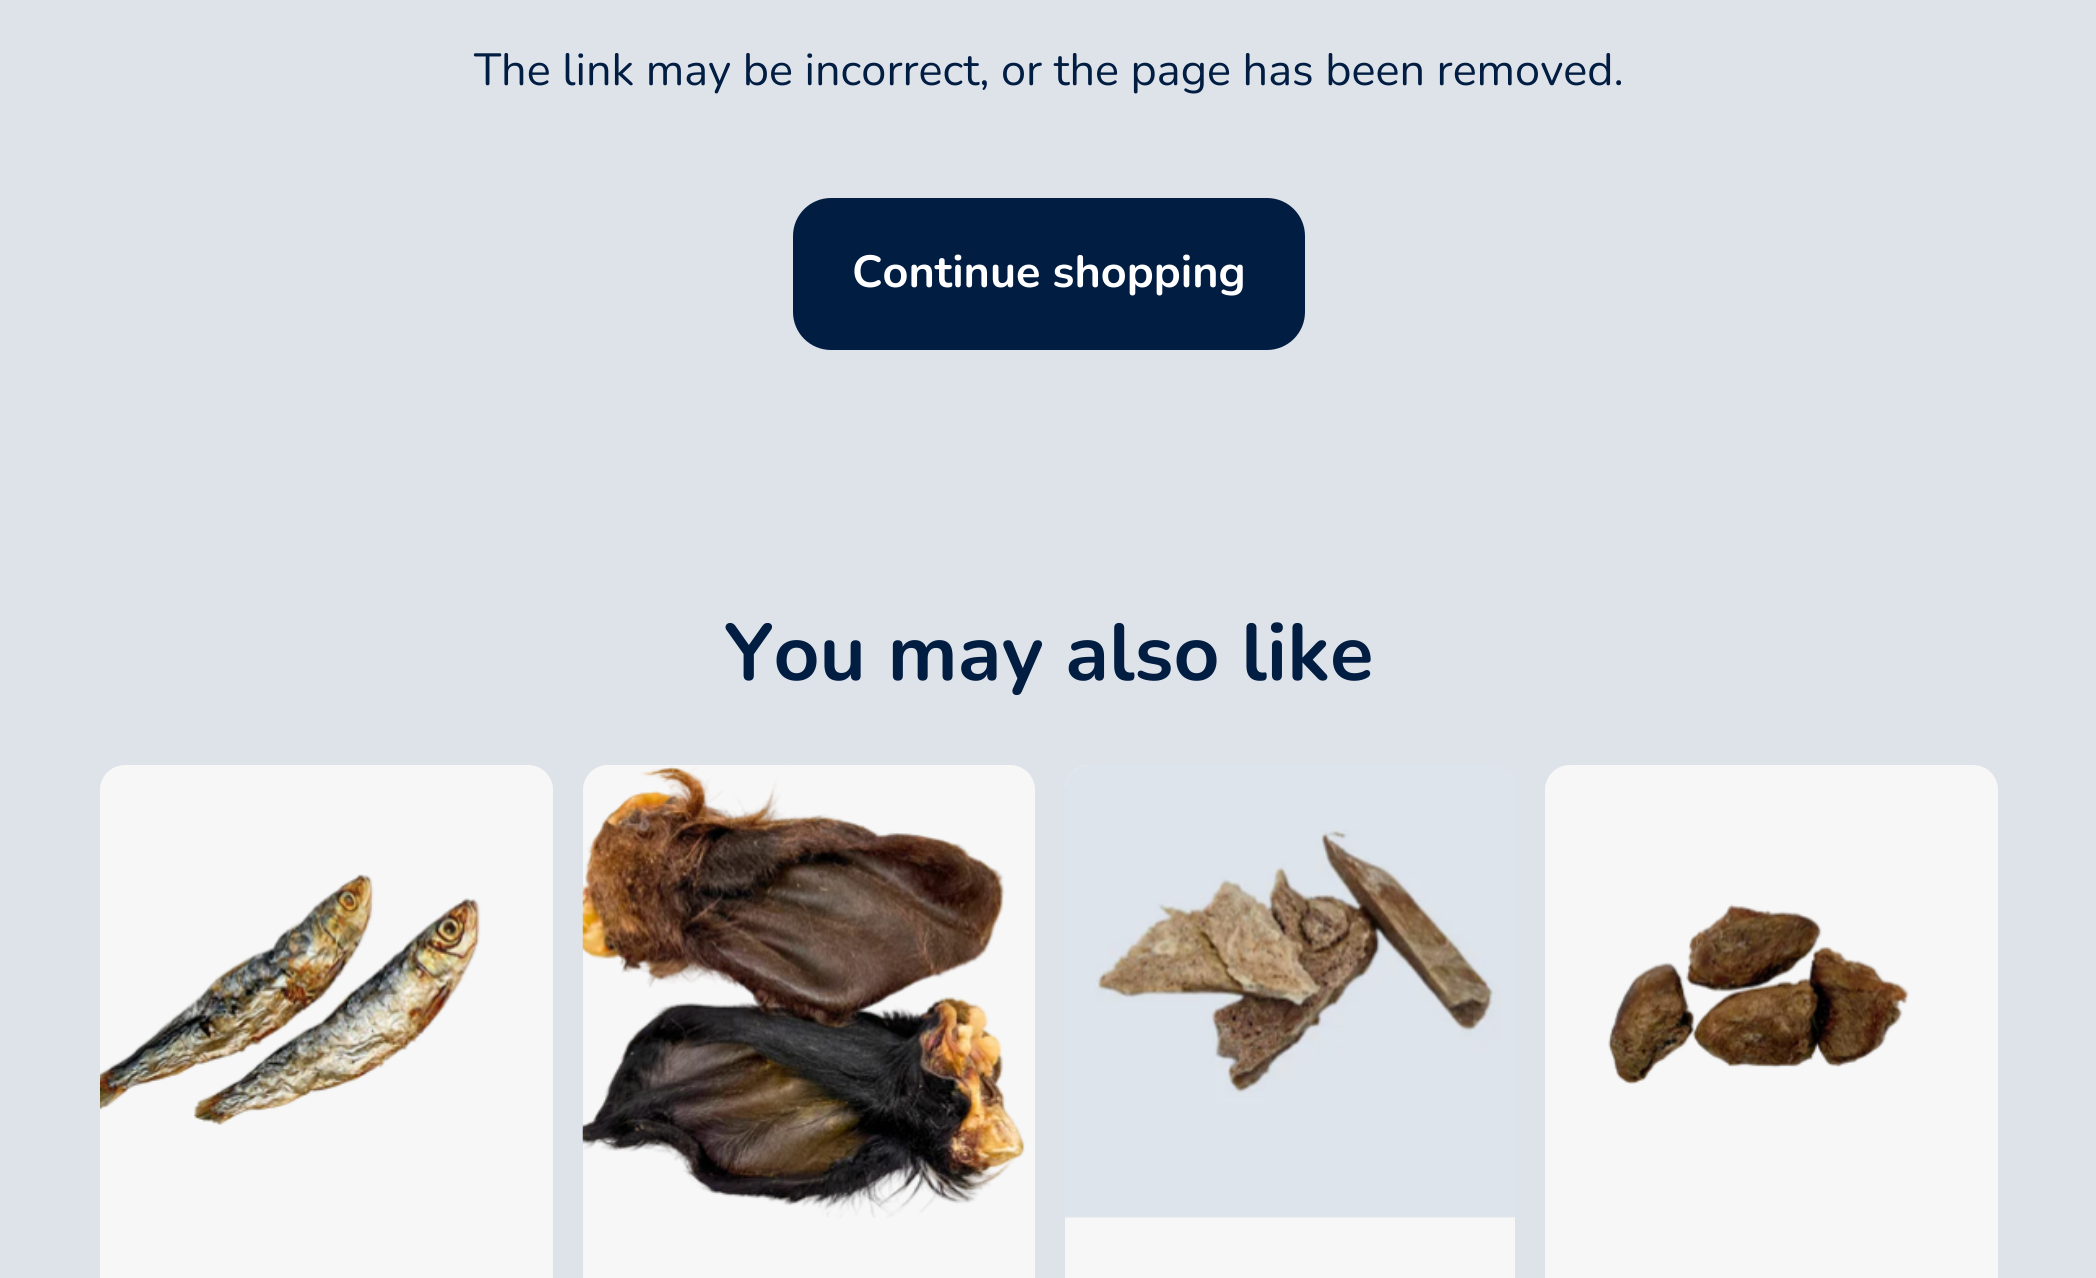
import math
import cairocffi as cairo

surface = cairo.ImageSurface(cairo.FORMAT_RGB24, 2096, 1278)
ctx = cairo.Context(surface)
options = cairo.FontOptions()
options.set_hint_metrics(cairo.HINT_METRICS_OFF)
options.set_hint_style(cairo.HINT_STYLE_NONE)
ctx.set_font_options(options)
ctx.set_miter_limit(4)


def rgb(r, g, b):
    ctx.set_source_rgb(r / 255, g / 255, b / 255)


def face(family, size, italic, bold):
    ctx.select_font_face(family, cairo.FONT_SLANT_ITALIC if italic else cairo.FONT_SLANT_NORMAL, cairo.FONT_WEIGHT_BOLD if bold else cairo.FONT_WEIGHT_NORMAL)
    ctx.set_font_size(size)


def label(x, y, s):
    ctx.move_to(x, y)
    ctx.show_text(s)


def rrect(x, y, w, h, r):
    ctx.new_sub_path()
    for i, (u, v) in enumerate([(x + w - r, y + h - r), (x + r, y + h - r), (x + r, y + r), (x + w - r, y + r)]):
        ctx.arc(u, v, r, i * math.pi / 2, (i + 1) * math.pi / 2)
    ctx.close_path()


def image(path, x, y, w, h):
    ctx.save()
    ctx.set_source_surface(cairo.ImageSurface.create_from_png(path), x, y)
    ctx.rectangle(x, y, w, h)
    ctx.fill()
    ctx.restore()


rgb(222, 227, 233)
ctx.paint()
face('Nunito', 45, 0, 0)
rgb(1, 29, 66)
label(474, 85, 'The link may be incorrect, or the page has been removed.')
rrect(793, 198, 512, 152, 38)
ctx.fill()
face('Nunito', 45, 0, 1)
rgb(255, 255, 255)
label(852, 287, 'Continue shopping')
face('Nunito', 80, 0, 1)
rgb(1, 29, 66)
label(724, 680, 'You may also like')
rgb(247, 247, 247)
rrect(100, 765, 453, 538, 25)
ctx.fill()
image('image0.png', 100, 874, 381, 251)
rrect(583, 765, 452, 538, 25)
ctx.fill()
image('image1.png', 582, 766, 443, 452)
rrect(1065, 765, 450, 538, 25)
ctx.fill()
image('image2.png', 1065, 765, 450, 453)
rrect(1545, 765, 453, 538, 25)
ctx.fill()
image('image3.png', 1608, 904, 302, 180)
surface.write_to_png('render.png')
